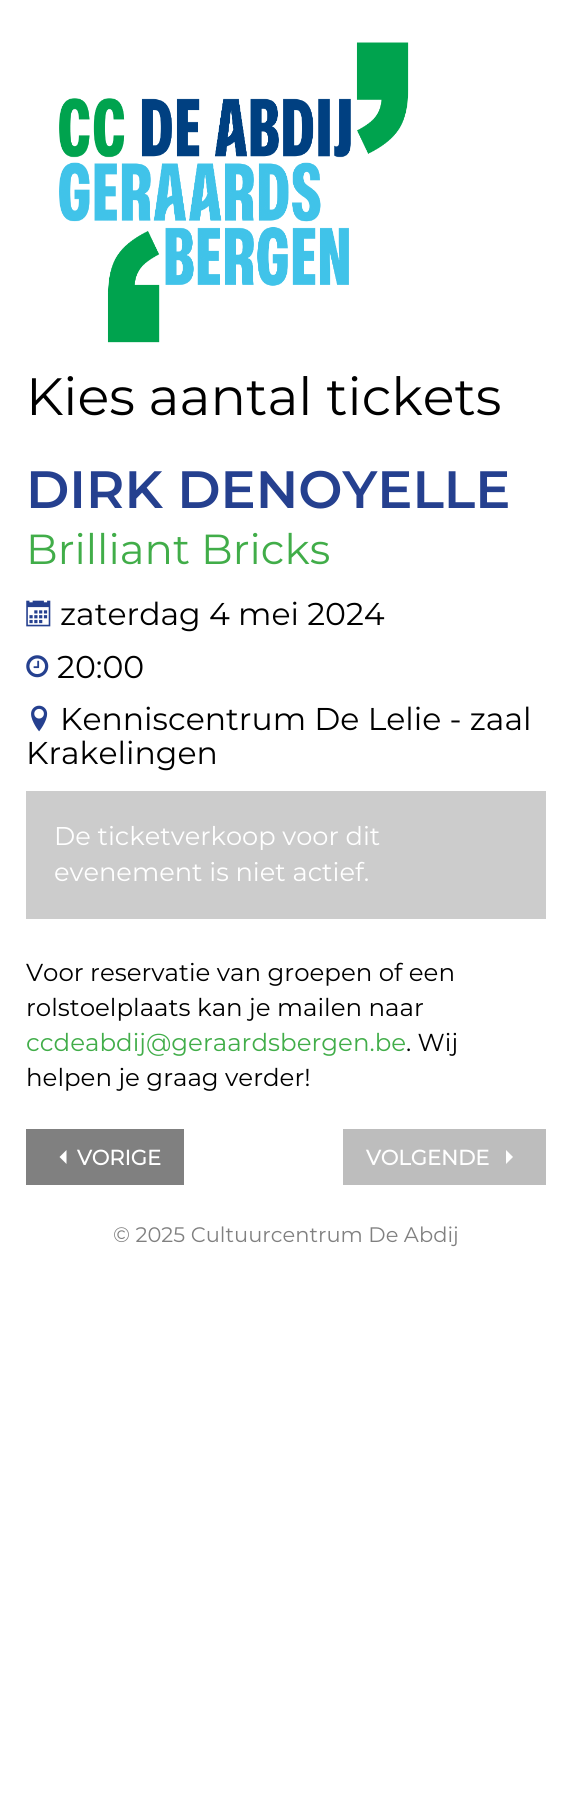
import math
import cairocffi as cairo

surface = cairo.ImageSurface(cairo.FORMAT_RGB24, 571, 1804)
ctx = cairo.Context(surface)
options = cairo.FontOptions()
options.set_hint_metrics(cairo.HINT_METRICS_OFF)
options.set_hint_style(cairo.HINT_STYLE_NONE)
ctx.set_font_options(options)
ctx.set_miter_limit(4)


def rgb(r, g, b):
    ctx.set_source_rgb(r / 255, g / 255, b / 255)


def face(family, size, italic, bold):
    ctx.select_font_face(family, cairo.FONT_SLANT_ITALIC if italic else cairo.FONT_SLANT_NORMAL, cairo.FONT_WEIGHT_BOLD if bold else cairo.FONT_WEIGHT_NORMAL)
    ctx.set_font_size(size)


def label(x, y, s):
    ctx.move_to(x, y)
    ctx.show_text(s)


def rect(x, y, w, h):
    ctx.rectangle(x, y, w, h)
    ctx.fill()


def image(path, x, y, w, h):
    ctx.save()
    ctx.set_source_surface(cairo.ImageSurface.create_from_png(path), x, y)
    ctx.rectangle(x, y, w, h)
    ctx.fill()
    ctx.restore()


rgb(255, 255, 255)
ctx.paint()
image('image0.png', 59, 42, 350, 301)
face('Montserrat', 52.5, 0, 0)
rgb(0, 0, 0)
label(26, 415, 'Kies aantal tickets')
face('Montserrat SemiBold', 52.5, 0, 0)
rgb(37, 64, 143)
label(26, 508, 'DIRK DENOYELLE')
face('Montserrat', 42, 0, 0)
rgb(65, 173, 73)
label(26, 564, 'Brilliant Bricks')
image('image1.png', 26, 600, 25, 27)
face('Montserrat', 31.5, 0, 0)
rgb(0, 0, 0)
label(60, 625, 'zaterdag 4 mei 2024')
image('image2.png', 26, 655, 23, 23)
label(57, 678, '20:00')
image('image3.png', 31, 705, 17, 27)
label(60, 730, 'Kenniscentrum De Lelie - zaal')
label(26, 764, 'Krakelingen')
rgb(204, 204, 204)
rect(26, 791, 520, 128)
face('Montserrat', 25.7, 0, 0)
rgb(255, 255, 255)
label(54, 845, 'De ticketverkoop voor dit')
label(54, 881, 'evenement is niet actief.')
face('Montserrat', 24.5, 0, 0)
rgb(0, 0, 0)
label(26, 981, 'Voor reservatie van groepen of een')
label(26, 1016, 'rolstoelplaats kan je mailen naar')
rgb(65, 173, 73)
label(26, 1051, 'ccdeabdij@geraardsbergen.be')
rgb(0, 0, 0)
label(406, 1051, '. Wij')
label(26, 1086, 'helpen je graag verder!')
rgb(128, 128, 128)
rect(26, 1129, 158, 56)
rgb(255, 255, 255)
ctx.new_path()
ctx.move_to(66.5, 1150)
ctx.line_to(66.5, 1164)
ctx.line_to(59.5, 1157)
ctx.close_path()
ctx.fill()
face('Montserrat', 21, 0, 1)
label(77, 1165, 'VORIGE')
rgb(189, 189, 189)
rect(343, 1129, 203, 56)
rgb(255, 255, 255)
label(366, 1165, 'VOLGENDE')
ctx.new_path()
ctx.move_to(506, 1164)
ctx.line_to(506, 1150)
ctx.line_to(513, 1157)
ctx.close_path()
ctx.fill()
face('Montserrat', 21, 0, 0)
rgb(128, 128, 128)
label(113, 1242, '© 2025 Cultuurcentrum De Abdij')
surface.write_to_png('render.png')
